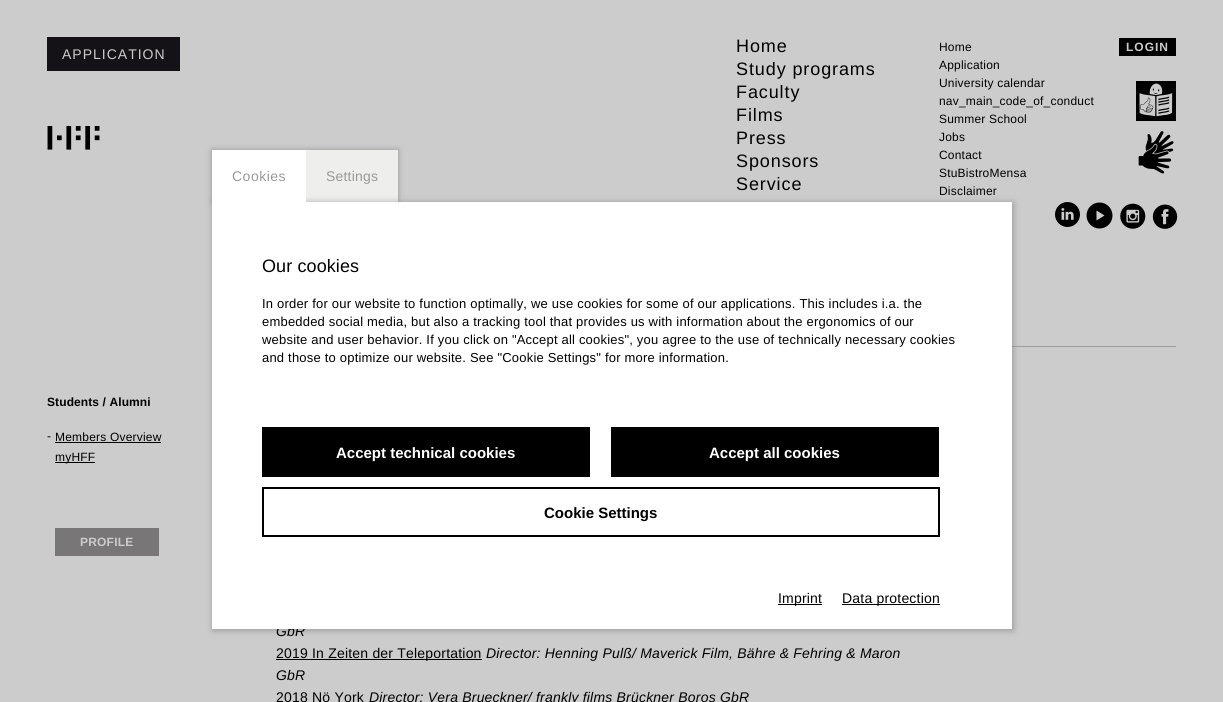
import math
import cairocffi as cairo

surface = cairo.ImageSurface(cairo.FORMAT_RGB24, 1223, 702)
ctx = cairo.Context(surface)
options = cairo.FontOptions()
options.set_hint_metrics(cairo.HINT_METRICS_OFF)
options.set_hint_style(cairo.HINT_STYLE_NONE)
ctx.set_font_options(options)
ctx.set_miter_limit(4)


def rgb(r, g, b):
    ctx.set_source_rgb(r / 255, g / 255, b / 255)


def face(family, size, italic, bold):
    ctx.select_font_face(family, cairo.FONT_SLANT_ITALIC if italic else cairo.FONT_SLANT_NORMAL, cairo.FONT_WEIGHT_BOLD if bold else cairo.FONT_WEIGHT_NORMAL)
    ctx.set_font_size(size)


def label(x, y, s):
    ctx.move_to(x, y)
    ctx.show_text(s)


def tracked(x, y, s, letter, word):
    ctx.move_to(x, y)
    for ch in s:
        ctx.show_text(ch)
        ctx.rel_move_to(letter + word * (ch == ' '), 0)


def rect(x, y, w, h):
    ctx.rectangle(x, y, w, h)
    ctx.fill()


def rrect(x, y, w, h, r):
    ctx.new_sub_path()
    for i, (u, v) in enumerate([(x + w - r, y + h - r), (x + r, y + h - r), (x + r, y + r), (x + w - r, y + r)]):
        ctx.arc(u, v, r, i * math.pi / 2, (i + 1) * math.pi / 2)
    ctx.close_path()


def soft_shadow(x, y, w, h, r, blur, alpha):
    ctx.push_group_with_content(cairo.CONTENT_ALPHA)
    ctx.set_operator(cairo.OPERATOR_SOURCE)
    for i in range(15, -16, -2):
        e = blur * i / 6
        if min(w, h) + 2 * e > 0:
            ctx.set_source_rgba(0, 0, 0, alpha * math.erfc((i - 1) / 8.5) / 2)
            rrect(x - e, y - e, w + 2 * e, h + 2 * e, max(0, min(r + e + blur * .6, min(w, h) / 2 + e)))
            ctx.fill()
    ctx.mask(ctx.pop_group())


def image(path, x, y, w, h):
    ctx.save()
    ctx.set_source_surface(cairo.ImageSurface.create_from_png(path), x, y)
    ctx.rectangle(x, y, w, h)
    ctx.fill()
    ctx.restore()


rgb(204, 204, 204)
ctx.paint()
rgb(20, 18, 22)
rect(47, 37, 133, 34)
face('Liberation Sans', 14, 0, 0)
rgb(204, 204, 204)
tracked(62, 59, 'APPLICATION', 1, 0)
face('Liberation Sans', 18, 0, 0)
rgb(0, 0, 0)
tracked(736, 52, 'Home', 0.9, 0)
tracked(736, 75, 'Study programs', 0.9, 0)
tracked(736, 98, 'Faculty', 0.9, 0)
tracked(736, 121, 'Films', 0.9, 0)
tracked(736, 144, 'Press', 0.9, 0)
tracked(736, 167, 'Sponsors', 0.9, 0)
tracked(736, 190, 'Service', 0.9, 0)
face('Liberation Sans', 12, 0, 0)
tracked(939, 51, 'Home', 0.2, 0)
tracked(939, 69, 'Application', 0.2, 0)
tracked(939, 87, 'University calendar', 0.2, 0)
tracked(939, 105, 'nav_main_code_of_conduct', 0.2, 0)
tracked(939, 123, 'Summer School', 0.2, 0)
tracked(939, 141, 'Jobs', 0.2, 0)
tracked(939, 159, 'Contact', 0.2, 0)
tracked(939, 177, 'StuBistroMensa', 0.2, 0)
tracked(939, 195, 'Disclaimer', 0.2, 0)
rect(1119, 38, 57, 18)
face('Liberation Sans', 12, 0, 1)
rgb(204, 204, 204)
tracked(1126, 51, 'LOGIN', 1, 0)
image('image0.png', 1136, 81, 40, 40)
image('image1.png', 1138, 131, 36, 43)
image('image2.png', 47, 126, 53, 24)
image('image3.png', 1055, 202, 25, 25)
rgb(0, 0, 0)
ctx.arc(1099.5, 215.5, 13, 0, 2 * math.pi)
ctx.fill()
rgb(204, 204, 204)
ctx.set_fill_rule(cairo.FILL_RULE_EVEN_ODD)
ctx.new_path()
ctx.move_to(1096.5, 210.5)
ctx.line_to(1096.5, 220.5)
ctx.line_to(1104.5, 215.5)
ctx.close_path()
ctx.fill()
image('image4.png', 1120, 203, 26, 26)
image('image5.png', 1152, 204, 26, 25)
rgb(144, 140, 140)
soft_shadow(212, 150, 186, 52, 0, 3, 0.87)
rgb(238, 238, 237)
rect(306, 150, 92, 52)
rgb(156, 156, 156)
rect(1012, 346, 164, 1)
rgb(144, 140, 140)
soft_shadow(213, 203, 800, 427, 0, 3.5, 0.87)
rgb(255, 255, 255)
rect(212, 150, 94, 52)
face('Liberation Sans', 14, 0, 0)
rgb(153, 153, 153)
tracked(232, 181, 'Cookies', 0.5, 0)
tracked(326, 181, 'Settings', 0.2, 0)
face('Liberation Sans', 14, 1, 0)
rgb(0, 0, 0)
tracked(276, 636, 'GbR', 0.2, 0)
rgb(255, 255, 255)
rect(212, 202, 800, 427)
face('Liberation Sans', 18, 0, 0)
rgb(0, 0, 0)
tracked(262, 272, 'Our cookies', 0.1, 0)
face('Liberation Sans', 13, 0, 0)
tracked(262, 308, 'In order for our website to function optimally, we use cookies for some of our applications. This includes i.a. the', 0.2, 0)
tracked(262, 326, 'embedded social media, but also a tracking tool that provides us with information about the ergonomics of our', 0.2, 0)
tracked(262, 344, 'website and user behavior. If you click on "Accept all cookies", you agree to the use of technically necessary cookies', 0.2, 0)
tracked(262, 362, 'and those to optimize our website. See "Cookie Settings" for more information.', 0.2, 0)
rect(262, 427, 328, 50)
face('Liberation Sans', 15, 0, 1)
rgb(255, 255, 255)
label(336, 458, 'Accept technical cookies')
rgb(0, 0, 0)
rect(611, 427, 328, 50)
rgb(255, 255, 255)
label(709, 458, 'Accept all cookies')
ctx.rectangle(263, 488, 676, 48)
rgb(0, 0, 0)
ctx.stroke()
label(544, 518, 'Cookie Settings')
rect(778, 604, 44, 1)
face('Liberation Sans', 14, 0, 0)
tracked(778, 603, 'Imprint', 0.2, 0)
rect(842, 604, 98, 1)
tracked(842, 603, 'Data protection', 0.2, 0)
face('Liberation Sans', 12, 0, 1)
tracked(47, 406, 'Students / Alumni', 0.1, 0)
face('Liberation Sans', 12, 0, 0)
tracked(47, 440, '-', 0.2, 0)
tracked(55, 441, 'Members Overview', 0.2, 0)
rect(55, 442, 106, 1)
rect(55, 462, 40, 1)
tracked(55, 461, 'myHFF', 0.2, 0)
rgb(120, 118, 118)
rect(55, 528, 104, 28)
face('Liberation Sans', 12, 0, 1)
rgb(204, 204, 204)
tracked(80, 546, 'PROFILE', 0.2, 0)
rgb(0, 0, 0)
rect(276, 659, 206, 1)
face('Liberation Sans', 14, 0, 0)
tracked(276, 658, '2019 In Zeiten der Teleportation', 0.2, 0)
face('Liberation Sans', 14, 1, 0)
tracked(486, 658, 'Director: Henning Pulß/ Maverick Film, Bähre & Fehring & Maron', 0.2, 0)
tracked(276, 680, 'GbR', 0.2, 0)
face('Liberation Sans', 14, 0, 0)
tracked(276, 702, '2018 Nö York', 0.2, 0)
face('Liberation Sans', 14, 1, 0)
tracked(369, 702, 'Director: Vera Brueckner/ frankly films Brückner Boros GbR', 0.2, 0)
surface.write_to_png('render.png')
